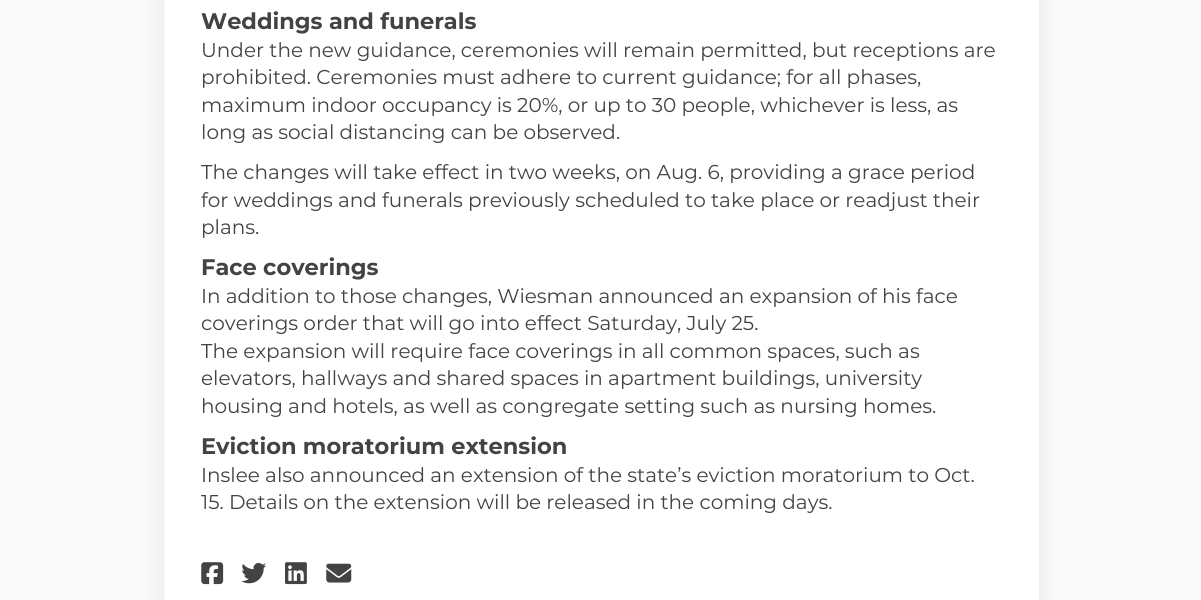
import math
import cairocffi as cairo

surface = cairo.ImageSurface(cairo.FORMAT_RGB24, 1201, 600)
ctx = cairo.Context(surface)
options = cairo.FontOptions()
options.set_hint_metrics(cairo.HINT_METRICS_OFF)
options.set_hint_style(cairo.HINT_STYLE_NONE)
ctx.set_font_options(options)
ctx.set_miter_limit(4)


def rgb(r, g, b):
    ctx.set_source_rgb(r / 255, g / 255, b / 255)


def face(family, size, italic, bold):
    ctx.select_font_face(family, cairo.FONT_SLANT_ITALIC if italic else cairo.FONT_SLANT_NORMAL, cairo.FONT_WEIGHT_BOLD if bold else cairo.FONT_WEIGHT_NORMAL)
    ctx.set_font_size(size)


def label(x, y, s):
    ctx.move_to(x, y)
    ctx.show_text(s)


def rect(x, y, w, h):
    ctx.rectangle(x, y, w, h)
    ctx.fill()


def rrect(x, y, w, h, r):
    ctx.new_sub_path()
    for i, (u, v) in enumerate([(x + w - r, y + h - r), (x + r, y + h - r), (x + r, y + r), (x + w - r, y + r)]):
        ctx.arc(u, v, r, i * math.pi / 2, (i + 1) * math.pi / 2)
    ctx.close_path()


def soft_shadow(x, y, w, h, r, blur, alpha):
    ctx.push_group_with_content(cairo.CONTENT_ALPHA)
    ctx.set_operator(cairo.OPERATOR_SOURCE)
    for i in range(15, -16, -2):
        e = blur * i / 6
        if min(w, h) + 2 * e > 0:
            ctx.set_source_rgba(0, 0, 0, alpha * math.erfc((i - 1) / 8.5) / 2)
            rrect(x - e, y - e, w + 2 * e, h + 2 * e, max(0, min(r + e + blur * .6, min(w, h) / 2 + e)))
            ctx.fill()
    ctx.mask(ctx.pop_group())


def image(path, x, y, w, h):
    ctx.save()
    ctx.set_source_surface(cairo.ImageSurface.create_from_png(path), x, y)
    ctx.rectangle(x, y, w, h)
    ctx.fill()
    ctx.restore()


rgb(250, 250, 250)
ctx.paint()
rgb(0, 0, 0)
soft_shadow(164, -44, 875, 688, 6, 12.5, 0.08)
rgb(255, 255, 255)
rect(164, 0, 875, 600)
face('Montserrat', 22.5, 0, 1)
rgb(67, 67, 67)
label(201, 29, 'Weddings and funerals')
face('Montserrat', 20, 0, 0)
label(201, 57, 'Under the new guidance, ceremonies will remain permitted, but receptions are')
label(201, 84, 'prohibited. Ceremonies must adhere to current guidance; for all phases,')
label(201, 112, 'maximum indoor occupancy is 20%, or up to 30 people, whichever is less, as')
label(201, 139, 'long as social distancing can be observed.')
label(201, 179, 'The changes will take effect in two weeks, on Aug. 6, providing a grace period')
label(201, 207, 'for weddings and funerals previously scheduled to take place or readjust their')
label(201, 234, 'plans.')
face('Montserrat', 22.5, 0, 1)
label(201, 275, 'Face coverings')
face('Montserrat', 20, 0, 0)
label(201, 303, 'In addition to those changes, Wiesman announced an expansion of his face')
label(201, 330, 'coverings order that will go into effect Saturday, July 25.')
label(201, 358, 'The expansion will require face coverings in all common spaces, such as')
label(201, 385, 'elevators, hallways and shared spaces in apartment buildings, university')
label(201, 413, 'housing and hotels, as well as congregate setting such as nursing homes.')
face('Montserrat', 22.5, 0, 1)
label(201, 454, 'Eviction moratorium extension')
face('Montserrat', 20, 0, 0)
label(201, 482, 'Inslee also announced an extension of the state’s eviction moratorium to Oct.')
label(201, 509, '15. Details on the extension will be released in the coming days.')
image('image0.png', 201, 562, 23, 23)
image('image1.png', 241, 563, 26, 21)
image('image2.png', 285, 562, 22, 23)
image('image3.png', 326, 563, 26, 20)
surface.write_to_png('render.png')
